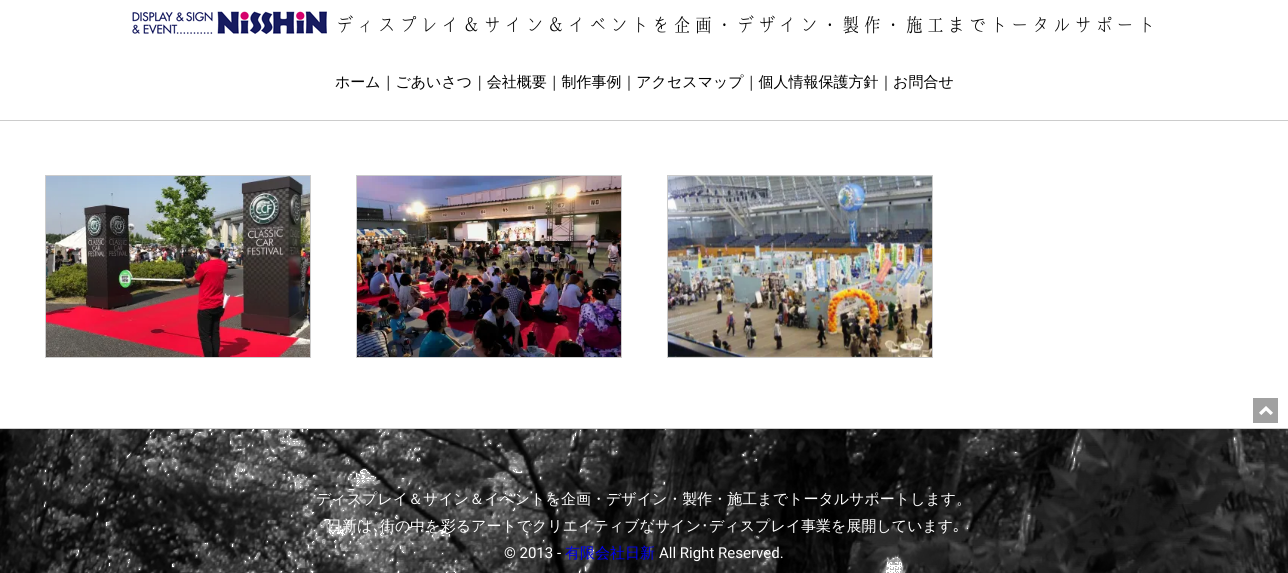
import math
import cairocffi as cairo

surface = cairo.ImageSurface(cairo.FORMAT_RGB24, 1288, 573)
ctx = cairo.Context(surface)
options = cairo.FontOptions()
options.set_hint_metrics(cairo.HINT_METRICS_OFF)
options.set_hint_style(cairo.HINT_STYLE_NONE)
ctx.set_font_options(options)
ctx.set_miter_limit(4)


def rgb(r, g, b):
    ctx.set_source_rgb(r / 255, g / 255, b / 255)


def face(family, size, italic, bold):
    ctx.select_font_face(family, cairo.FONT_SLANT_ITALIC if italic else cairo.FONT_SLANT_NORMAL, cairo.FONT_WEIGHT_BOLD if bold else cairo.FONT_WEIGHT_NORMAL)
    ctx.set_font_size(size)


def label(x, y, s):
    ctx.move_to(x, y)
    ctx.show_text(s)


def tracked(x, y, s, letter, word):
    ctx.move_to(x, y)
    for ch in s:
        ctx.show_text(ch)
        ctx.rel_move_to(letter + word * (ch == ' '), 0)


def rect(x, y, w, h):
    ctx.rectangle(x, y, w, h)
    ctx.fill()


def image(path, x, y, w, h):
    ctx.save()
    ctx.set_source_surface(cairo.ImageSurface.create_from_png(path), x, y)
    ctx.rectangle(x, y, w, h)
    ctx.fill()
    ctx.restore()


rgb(255, 255, 255)
ctx.paint()
image('image0.png', 132, 11, 195, 24)
face('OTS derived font', 19.2, 0, 0)
rgb(0, 0, 0)
tracked(335, 32, 'ディスプレイ＆サイン＆イベントを企画・デザイン・製作・施工までトータルサポート', 1.9, 0)
rgb(204, 204, 204)
rect(0, 120, 1288, 1)
face('WenQuanYi Zen Hei Medium', 15, 0, 0)
rgb(0, 0, 0)
label(335, 87, 'ホーム｜ごあいさつ｜会社概要｜制作事例｜アクセスマップ｜個人情報保護方針｜お問合せ')
ctx.rectangle(45.5, 175.5, 265, 182)
rgb(204, 204, 204)
ctx.set_line_width(1)
ctx.stroke()
image('image1.png', 46, 176, 264, 181)
ctx.rectangle(356.5, 175.5, 265, 182)
ctx.stroke()
image('image2.png', 357, 176, 264, 181)
ctx.rectangle(667.5, 175.5, 265, 182)
ctx.stroke()
image('image3.png', 668, 176, 264, 181)
image('image4.png', 0, 429, 1288, 144)
rect(0, 428, 1288, 1)
rgb(255, 255, 255)
label(316, 504, 'ディスプレイ＆サイン＆イベントを企画・デザイン・製作・施工までトータルサポートします。')
label(327, 531, '日新は')
label(380, 531, '街の中を彩るアートでクリエイティブなサイン')
face('IPAPGothic', 15, 0, 0)
label(701, 531, '･')
face('WenQuanYi Zen Hei Medium', 15, 0, 0)
label(709, 531, 'ディスプレイ事業を展開しています')
face('IPAPGothic', 15, 0, 0)
label(373, 531, '､')
label(953, 531, '｡')
face('Roboto', 15, 0, 0)
label(504, 558, '© 2013 -')
face('WenQuanYi Zen Hei Medium', 15, 0, 0)
rgb(0, 0, 238)
label(565, 558, '有限会社日新')
face('Roboto', 15, 0, 0)
rgb(255, 255, 255)
label(659, 558, 'All Right Reserved.')
image('image5.png', 1253, 398, 25, 25)
surface.write_to_png('render.png')
